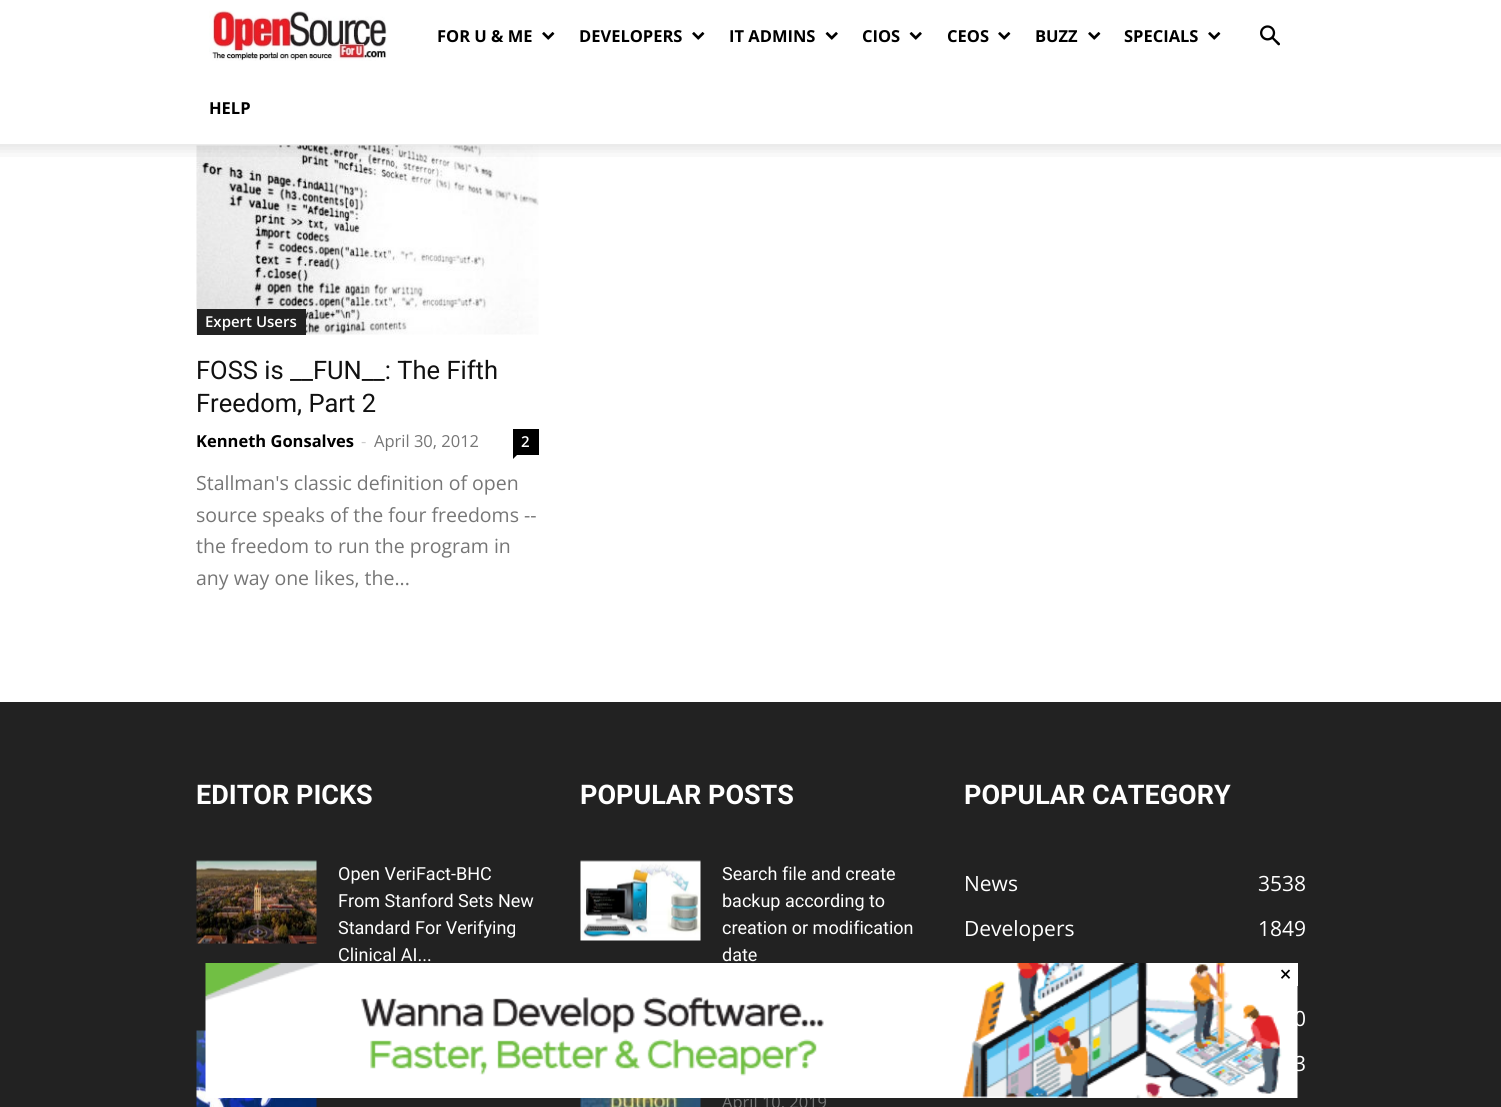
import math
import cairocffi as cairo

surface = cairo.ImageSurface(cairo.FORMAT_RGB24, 1501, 1107)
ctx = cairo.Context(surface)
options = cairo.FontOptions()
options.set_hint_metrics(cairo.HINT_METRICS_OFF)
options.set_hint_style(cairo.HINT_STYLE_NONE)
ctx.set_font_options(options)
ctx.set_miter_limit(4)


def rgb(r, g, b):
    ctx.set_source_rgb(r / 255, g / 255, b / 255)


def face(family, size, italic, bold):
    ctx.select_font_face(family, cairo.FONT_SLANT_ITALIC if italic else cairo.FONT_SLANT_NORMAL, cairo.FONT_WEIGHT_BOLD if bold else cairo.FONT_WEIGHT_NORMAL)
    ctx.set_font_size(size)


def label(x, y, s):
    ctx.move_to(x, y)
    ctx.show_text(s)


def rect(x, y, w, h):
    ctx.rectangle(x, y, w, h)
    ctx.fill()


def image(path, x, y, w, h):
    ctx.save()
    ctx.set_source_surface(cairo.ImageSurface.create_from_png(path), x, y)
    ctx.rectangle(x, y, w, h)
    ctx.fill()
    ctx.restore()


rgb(255, 255, 255)
ctx.paint()
image('image0.png', 209, 10, 178, 51)
face('Open Sans', 16.5, 0, 1)
rgb(0, 0, 0)
label(437, 42, 'FOR U & ME')
image('image1.png', 542, 32, 13, 8)
label(579, 42, 'DEVELOPERS')
image('image1.png', 692, 32, 13, 8)
label(729, 42, 'IT ADMINS')
image('image2.png', 825, 32, 13, 8)
label(862, 42, 'CIOS')
image('image2.png', 909, 32, 13, 8)
label(947, 42, 'CEOS')
image('image1.png', 998, 32, 13, 8)
label(1035, 42, 'BUZZ')
image('image1.png', 1088, 32, 13, 8)
label(1124, 42, 'SPECIALS')
image('image1.png', 1208, 32, 13, 8)
label(209, 114, 'HELP')
image('image3.png', 1260, 25, 20, 21)
image('image5.png', 196, 145, 343, 190)
image('image4.png', 0, 144, 1501, 13)
rgb(34, 34, 34)
rect(197, 309, 109, 26)
face('Open Sans SemiBold', 15, 0, 0)
rgb(255, 255, 255)
label(205, 327, 'Expert Users')
face('Roboto', 25.5, 0, 0)
rgb(17, 17, 17)
label(196, 379, 'FOSS is __FUN__: The Fifth')
label(196, 412, 'Freedom, Part 2')
face('Open Sans', 16.5, 0, 1)
rgb(0, 0, 0)
label(196, 447, 'Kenneth Gonsalves')
face('Open Sans', 16.5, 0, 0)
rgb(204, 204, 204)
label(361, 447, '-')
rgb(118, 118, 118)
label(374, 447, 'April 30, 2012')
rgb(0, 0, 0)
rect(513, 429, 26, 26)
face('Open Sans SemiBold', 15, 0, 0)
rgb(255, 255, 255)
label(521, 447, '2')
rgb(0, 0, 0)
ctx.new_path()
ctx.move_to(513, 454.5)
ctx.line_to(517.5, 454.5)
ctx.line_to(513, 459)
ctx.close_path()
ctx.fill()
face('Open Sans', 19.5, 0, 0)
rgb(118, 118, 118)
label(196, 490, 'Stallman\'s classic definition of open')
label(196, 522, 'source speaks of the four freedoms --')
label(196, 553, 'the freedom to run the program in')
label(196, 585, 'any way one likes, the...')
rgb(34, 34, 34)
rect(0, 702, 1501, 405)
face('Roboto', 27, 0, 1)
rgb(255, 255, 255)
label(196, 804, 'EDITOR PICKS')
image('image6.png', 196, 860, 121, 84)
face('Roboto', 18, 0, 0)
label(338, 880, 'Open VeriFact-BHC')
label(338, 907, 'From Stanford Sets New')
label(338, 934, 'Standard For Verifying')
label(338, 961, 'Clinical AI...')
image('image7.png', 196, 1030, 121, 77)
face('Roboto', 27, 0, 1)
label(580, 804, 'POPULAR POSTS')
image('image8.png', 580, 860, 121, 81)
face('Roboto', 18, 0, 0)
label(722, 880, 'Search file and create')
label(722, 907, 'backup according to')
label(722, 934, 'creation or modification')
label(722, 961, 'date')
image('image9.png', 580, 1098, 121, 9)
face('Open Sans', 16.5, 0, 0)
rgb(118, 118, 118)
label(722, 1108, 'April 10, 2019')
face('Roboto', 27, 0, 1)
rgb(255, 255, 255)
label(964, 804, 'POPULAR CATEGORY')
face('Open Sans', 21, 0, 0)
label(964, 891, 'News')
label(1258, 891, '3538')
label(964, 936, 'Developers')
label(1258, 936, '1849')
label(1294, 1026, '0')
label(1294, 1071, '3')
image('image10.png', 205, 963, 1093, 135)
rect(1297, 963, 1, 23)
face('Roboto', 21, 0, 0)
rgb(0, 0, 0)
label(1280, 981, '×')
surface.write_to_png('render.png')
